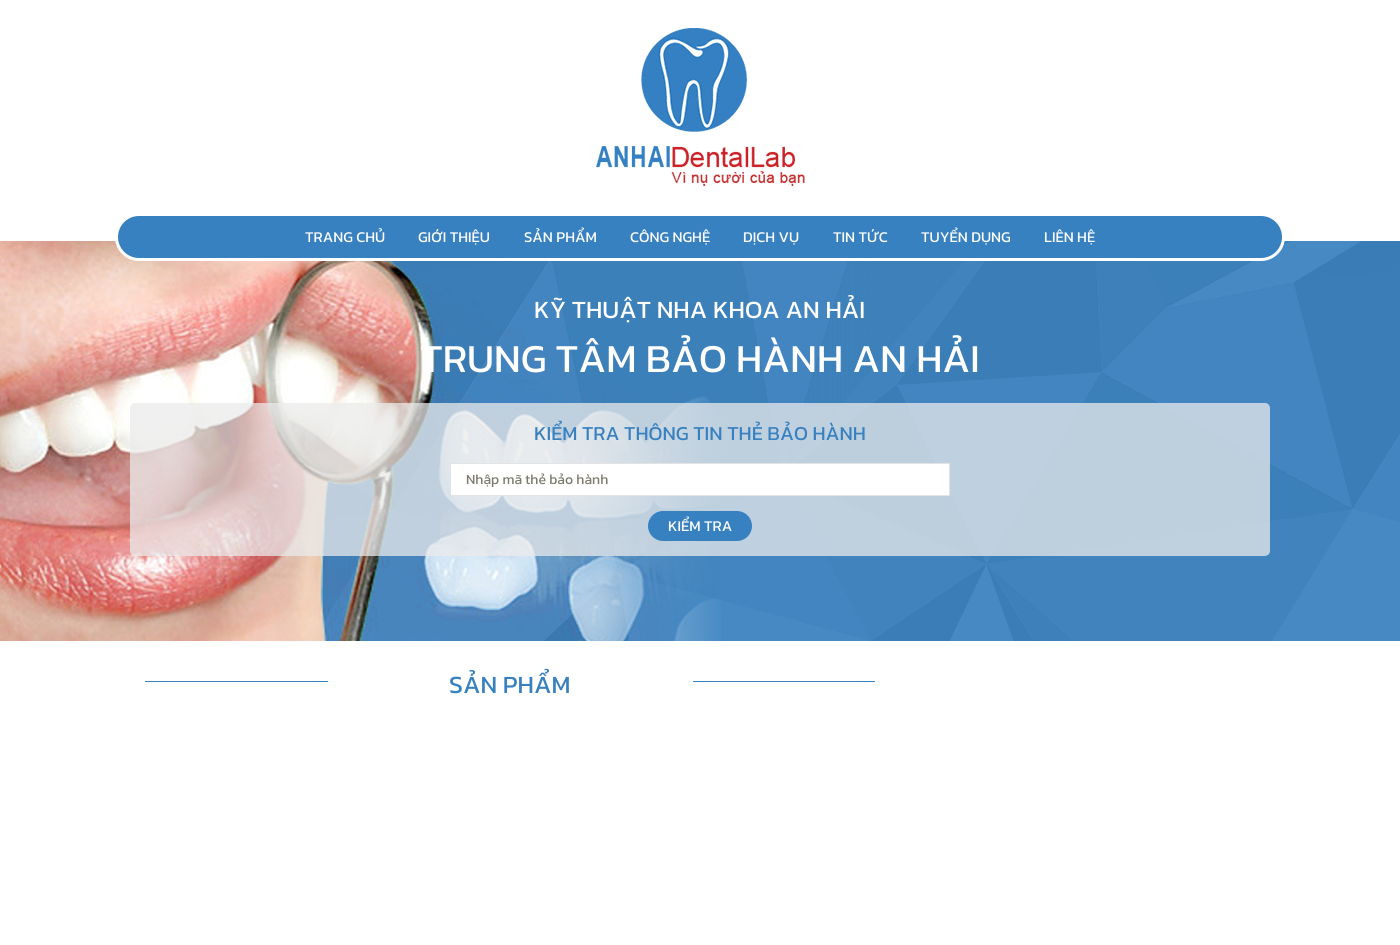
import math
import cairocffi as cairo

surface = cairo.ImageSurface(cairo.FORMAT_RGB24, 1400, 945)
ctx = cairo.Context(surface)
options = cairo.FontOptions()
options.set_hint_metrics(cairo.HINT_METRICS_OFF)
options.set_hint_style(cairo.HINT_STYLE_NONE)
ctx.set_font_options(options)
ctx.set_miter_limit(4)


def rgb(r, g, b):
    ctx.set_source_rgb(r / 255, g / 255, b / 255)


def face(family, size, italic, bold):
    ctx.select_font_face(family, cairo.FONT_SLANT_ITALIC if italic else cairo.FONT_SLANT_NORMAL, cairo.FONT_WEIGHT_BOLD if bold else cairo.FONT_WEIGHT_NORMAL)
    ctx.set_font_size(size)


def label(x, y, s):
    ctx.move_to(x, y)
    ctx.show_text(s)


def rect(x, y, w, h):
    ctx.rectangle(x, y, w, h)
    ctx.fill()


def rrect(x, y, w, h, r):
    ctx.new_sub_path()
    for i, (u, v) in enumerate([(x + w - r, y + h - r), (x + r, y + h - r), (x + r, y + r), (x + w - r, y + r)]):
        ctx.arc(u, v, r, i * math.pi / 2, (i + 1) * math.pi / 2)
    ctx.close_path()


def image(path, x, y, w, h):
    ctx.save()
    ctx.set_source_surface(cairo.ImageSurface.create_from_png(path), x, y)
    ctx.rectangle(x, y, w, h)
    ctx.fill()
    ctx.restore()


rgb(255, 255, 255)
ctx.paint()
image('image0.png', 596, 28, 209, 158)
rgb(56, 129, 192)
rect(323, 241, 1077, 400)
image('image1.png', 323, 241, 1077, 400)
image('image2.png', 0, 241, 721, 400)
rrect(116.5, 214.5, 1167, 45, 22.5)
ctx.fill_preserve()
rgb(255, 255, 255)
ctx.set_line_width(3)
ctx.stroke()
face('Kanit', 15, 0, 0)
label(305, 242, 'TRANG CHỦ')
label(418, 242, 'GIỚI THIỆU')
label(524, 242, 'SẢN PHẨM')
label(630, 242, 'CÔNG NGHỆ')
label(743, 242, 'DỊCH VỤ')
label(833, 242, 'TIN TỨC')
label(921, 242, 'TUYỂN DỤNG')
label(1044, 242, 'LIÊN HỆ')
face('Kanit', 25, 0, 0)
label(534, 318, 'KỸ THUẬT NHA KHOA AN HẢI')
face('Kanit', 40, 0, 0)
label(420, 372, 'TRUNG TÂM BẢO HÀNH AN HẢI')
image('image3.png', 130, 403, 1140, 153)
face('Kanit', 20, 0, 0)
rgb(56, 129, 192)
label(534, 440, 'KIỂM TRA THÔNG TIN THẺ BẢO HÀNH')
rgb(255, 255, 255)
ctx.rectangle(450.5, 463.5, 499, 32)
ctx.fill_preserve()
rgb(227, 227, 227)
ctx.set_line_width(1)
ctx.stroke()
face('Kanit', 14, 0, 0)
rgb(125, 123, 109)
label(466, 484, 'Nhập mã thẻ bảo hành')
rgb(56, 129, 192)
rrect(648, 511, 104, 30, 15)
ctx.fill()
face('Kanit', 15, 0, 0)
rgb(255, 255, 255)
label(668, 531, 'KIỂM TRA')
rgb(56, 129, 192)
rect(145, 681, 183, 1)
face('Kanit', 25, 0, 0)
label(449, 693, 'SẢN PHẨM')
rect(693, 681, 182, 1)
surface.write_to_png('render.png')
